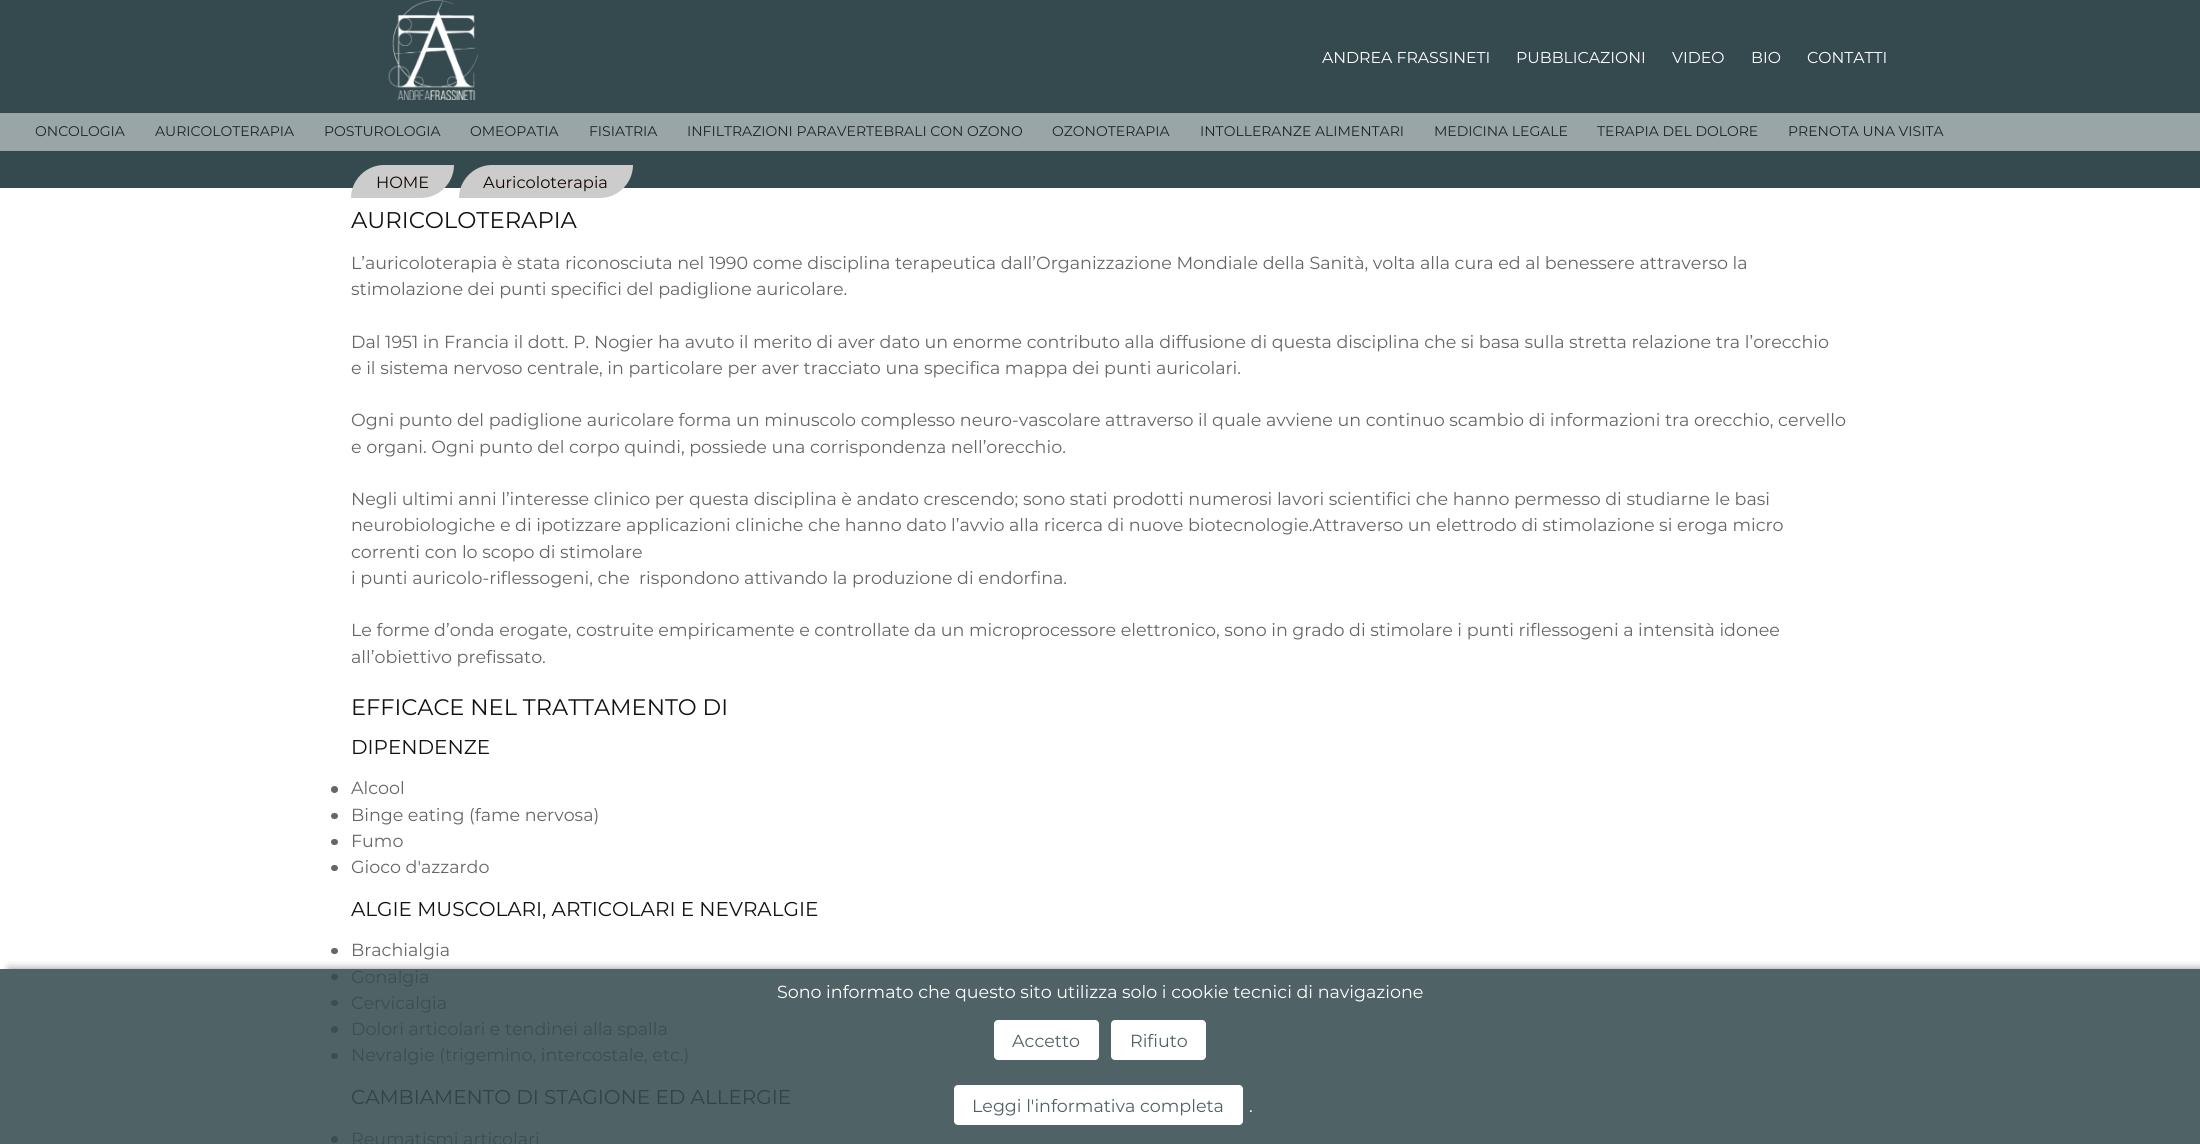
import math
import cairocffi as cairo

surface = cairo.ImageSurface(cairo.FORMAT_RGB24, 2200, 1144)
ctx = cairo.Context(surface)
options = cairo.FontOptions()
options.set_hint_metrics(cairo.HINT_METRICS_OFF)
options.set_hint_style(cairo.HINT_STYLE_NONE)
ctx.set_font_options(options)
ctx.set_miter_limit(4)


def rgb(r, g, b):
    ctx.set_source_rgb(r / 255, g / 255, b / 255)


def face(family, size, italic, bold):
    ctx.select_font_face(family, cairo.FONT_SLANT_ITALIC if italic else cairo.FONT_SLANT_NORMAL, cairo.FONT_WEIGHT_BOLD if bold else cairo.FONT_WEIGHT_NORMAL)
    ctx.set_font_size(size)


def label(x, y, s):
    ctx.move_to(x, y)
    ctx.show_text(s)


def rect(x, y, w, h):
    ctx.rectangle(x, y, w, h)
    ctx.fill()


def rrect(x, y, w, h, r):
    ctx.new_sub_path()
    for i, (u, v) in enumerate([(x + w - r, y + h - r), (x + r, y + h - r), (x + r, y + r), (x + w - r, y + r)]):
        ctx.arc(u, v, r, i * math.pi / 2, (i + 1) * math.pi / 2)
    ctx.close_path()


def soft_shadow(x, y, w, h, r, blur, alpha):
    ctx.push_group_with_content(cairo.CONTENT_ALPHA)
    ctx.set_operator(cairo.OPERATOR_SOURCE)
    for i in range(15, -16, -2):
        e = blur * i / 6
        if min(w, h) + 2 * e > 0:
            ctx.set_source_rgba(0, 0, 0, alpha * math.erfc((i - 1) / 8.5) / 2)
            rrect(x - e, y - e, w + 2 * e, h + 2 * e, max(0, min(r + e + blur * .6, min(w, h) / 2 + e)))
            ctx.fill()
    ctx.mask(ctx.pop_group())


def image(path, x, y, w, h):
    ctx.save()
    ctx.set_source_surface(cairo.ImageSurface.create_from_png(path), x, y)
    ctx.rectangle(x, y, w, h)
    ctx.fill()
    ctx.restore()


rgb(53, 74, 78)
ctx.paint()
image('image0.png', 388, 0, 91, 100)
face('Montserrat Thin', 15.75, 0, 0)
rgb(255, 255, 255)
label(1322, 63, 'ANDREA FRASSINETI')
label(1516, 63, 'PUBBLICAZIONI')
label(1672, 63, 'VIDEO')
label(1751, 63, 'BIO')
label(1807, 63, 'CONTATTI')
rgb(154, 165, 167)
rect(0, 113, 2200, 38)
face('Montserrat Thin', 14, 0, 0)
rgb(27, 37, 39)
label(35, 136, 'ONCOLOGIA')
label(155, 136, 'AURICOLOTERAPIA')
label(324, 136, 'POSTUROLOGIA')
label(470, 136, 'OMEOPATIA')
label(589, 136, 'FISIATRIA')
label(687, 136, 'INFILTRAZIONI PARAVERTEBRALI CON OZONO')
label(1052, 136, 'OZONOTERAPIA')
label(1200, 136, 'INTOLLERANZE ALIMENTARI')
label(1434, 136, 'MEDICINA LEGALE')
label(1597, 136, 'TERAPIA DEL DOLORE')
label(1788, 136, 'PRENOTA UNA VISITA')
rgb(255, 255, 255)
rect(0, 188, 2200, 781)
rgb(79, 98, 101)
rect(0, 969, 2200, 175)
rgb(204, 204, 204)
ctx.new_path()
ctx.move_to(384, 165)
ctx.line_to(454, 165)
ctx.curve_to(454, 183, 439, 198, 421, 198)
ctx.line_to(351, 198)
ctx.curve_to(351, 180, 366, 165, 384, 165)
ctx.close_path()
ctx.fill()
face('Montserrat Thin', 16.25, 0, 0)
rgb(20, 7, 0)
label(376, 188, 'HOME')
rgb(204, 204, 204)
ctx.new_path()
ctx.move_to(492, 165)
ctx.line_to(633, 165)
ctx.curve_to(633, 183, 618, 198, 600, 198)
ctx.line_to(459, 198)
ctx.curve_to(459, 180, 474, 165, 492, 165)
ctx.close_path()
ctx.fill()
rgb(20, 7, 0)
label(483, 188, 'Auricoloterapia')
face('Montserrat Thin', 22.75, 0, 0)
rgb(17, 17, 17)
label(351, 228, 'AURICOLOTERAPIA')
face('Montserrat Thin', 17.5, 0, 0)
rgb(102, 102, 102)
label(351, 269, 'L’auricoloterapia è stata riconosciuta nel 1990 come disciplina terapeutica dall’Organizzazione Mondiale della Sanità, volta alla cura ed al benessere attraverso la')
label(351, 295, 'stimolazione dei punti specifici del padiglione auricolare.')
label(351, 348, 'Dal 1951 in Francia il dott. P. Nogier ha avuto il merito di aver dato un enorme contributo alla diffusione di questa disciplina che si basa sulla stretta relazione tra l’orecchio')
label(351, 374, 'e il sistema nervoso centrale, in particolare per aver tracciato una specifica mappa dei punti auricolari.')
label(351, 426, 'Ogni punto del padiglione auricolare forma un minuscolo complesso neuro-vascolare attraverso il quale avviene un continuo scambio di informazioni tra orecchio, cervello')
label(351, 453, 'e organi. Ogni punto del corpo quindi, possiede una corrispondenza nell’orecchio.')
label(351, 505, 'Negli ultimi anni l’interesse clinico per questa disciplina è andato crescendo; sono stati prodotti numerosi lavori scientifici che hanno permesso di studiarne le basi')
label(351, 531, 'neurobiologiche e di ipotizzare applicazioni cliniche che hanno dato l’avvio alla ricerca di nuove biotecnologie.Attraverso un elettrodo di stimolazione si eroga micro')
label(351, 558, 'correnti con lo scopo di stimolare')
label(351, 584, 'i punti auricolo-riflessogeni, che  rispondono attivando la produzione di endorfina.')
label(351, 636, 'Le forme d’onda erogate, costruite empiricamente e controllate da un microprocessore elettronico, sono in grado di stimolare i punti riflessogeni a intensità idonee')
label(351, 663, 'all’obiettivo prefissato.')
face('Montserrat Thin', 22.5, 0, 0)
rgb(17, 17, 17)
label(351, 715, 'EFFICACE NEL TRATTAMENTO DI')
face('Montserrat Thin', 20, 0, 0)
label(351, 754, 'DIPENDENZE')
rgb(102, 102, 102)
ctx.new_path()
ctx.arc(334.5, 789.5, 3.5, 0, 2 * math.pi)
ctx.fill()
face('Montserrat Thin', 17.5, 0, 0)
label(351, 794, 'Alcool')
rrect(331, 813, 7, 6, 3)
ctx.fill()
label(351, 821, 'Binge eating (fame nervosa)')
rrect(331, 839, 7, 6, 3)
ctx.fill()
label(351, 847, 'Fumo')
rrect(331, 865, 7, 6, 3)
ctx.fill()
label(351, 873, 'Gioco d\'azzardo')
face('Montserrat Thin', 20, 0, 0)
rgb(17, 17, 17)
label(351, 916, 'ALGIE MUSCOLARI, ARTICOLARI E NEVRALGIE')
rgb(102, 102, 102)
rrect(331, 948, 7, 6, 3)
ctx.fill()
face('Montserrat Thin', 17.5, 0, 0)
label(351, 956, 'Brachialgia')
rgb(59, 78, 81)
rrect(331, 974, 7, 6, 3)
ctx.fill()
label(351, 983, 'Gonalgia')
rrect(331, 1000, 7, 6, 3)
ctx.fill()
label(351, 1009, 'Cervicalgia')
ctx.new_path()
ctx.arc(334.5, 1029.5, 3.5, 0, 2 * math.pi)
ctx.fill()
label(351, 1035, 'Dolori articolari e tendinei alla spalla')
rrect(331, 1053, 7, 6, 3)
ctx.fill()
label(351, 1061, 'Nevralgie (trigemino, intercostale, etc.)')
face('Montserrat Thin', 20, 0, 0)
rgb(48, 67, 70)
label(351, 1104, 'CAMBIAMENTO DI STAGIONE ED ALLERGIE')
rgb(59, 78, 81)
ctx.new_path()
ctx.arc(334.5, 1139.5, 3.5, 0, 2 * math.pi)
ctx.fill()
face('Montserrat Thin', 17.5, 0, 0)
label(351, 1145, 'Reumatismi articolari')
ctx.save()
ctx.rectangle(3, 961, 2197, 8)
ctx.clip()
rgb(33, 33, 33)
soft_shadow(9, 969, 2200, 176, 0, 4.5, 0.5)
ctx.restore()
rgb(255, 255, 255)
label(777, 998, 'Sono informato che questo sito utilizza solo i cookie tecnici di navigazione')
rrect(994, 1020, 105, 40, 4)
ctx.fill()
rgb(79, 98, 101)
label(1012, 1047, 'Accetto')
rgb(255, 255, 255)
rrect(1111, 1020, 95, 40, 4)
ctx.fill()
rgb(79, 98, 101)
label(1130, 1047, 'Rifiuto')
rgb(255, 255, 255)
rrect(954, 1085, 289, 40, 4)
ctx.fill()
rgb(79, 98, 101)
label(972, 1112, 'Leggi l\'informativa completa')
rgb(255, 255, 255)
label(1249, 1112, '.')
surface.write_to_png('render.png')
